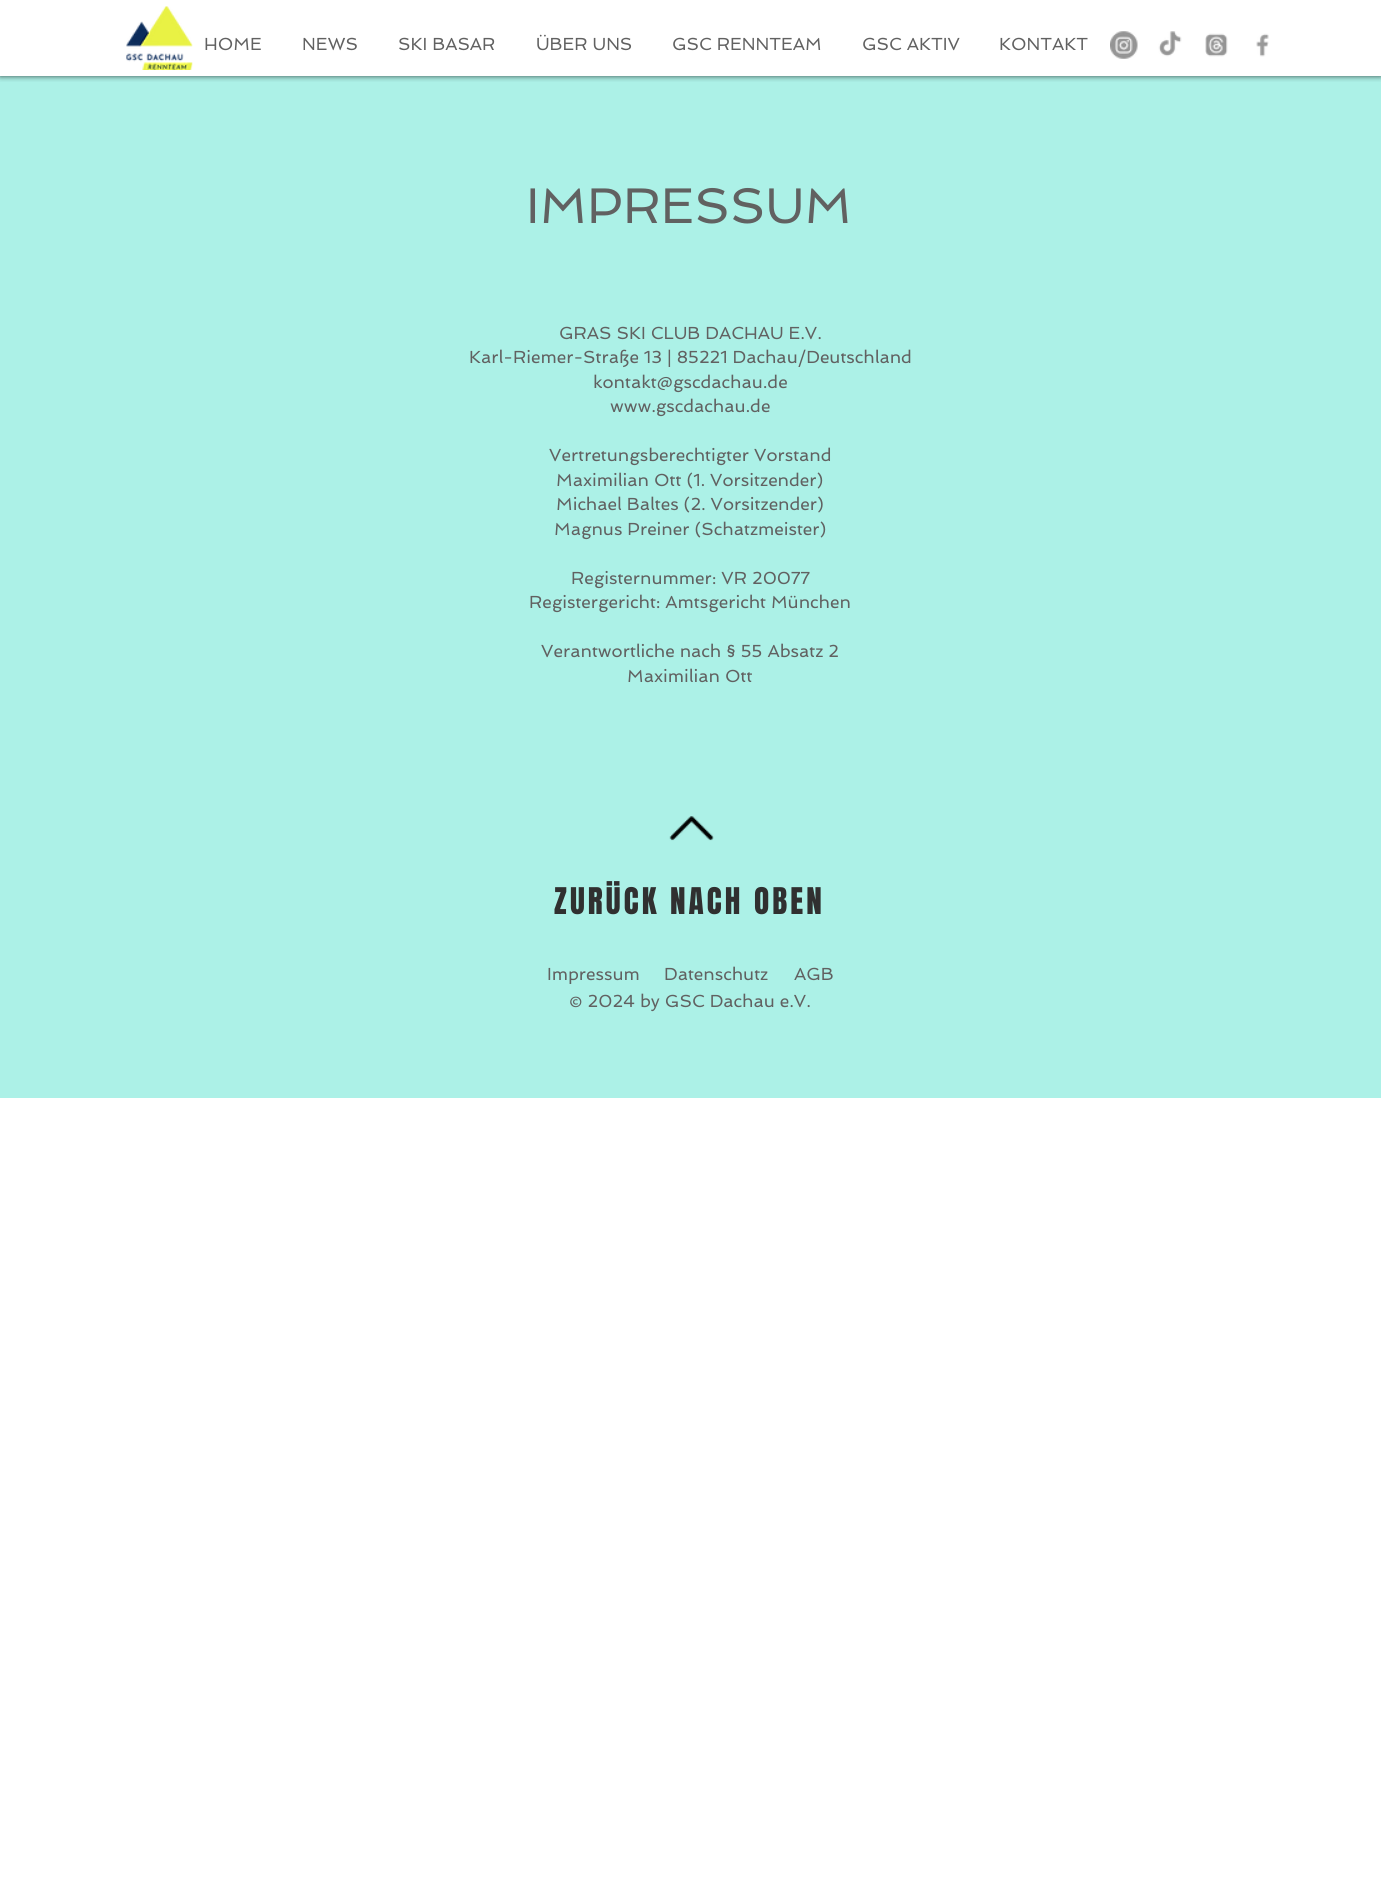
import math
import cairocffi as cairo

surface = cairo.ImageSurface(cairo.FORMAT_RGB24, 1381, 1880)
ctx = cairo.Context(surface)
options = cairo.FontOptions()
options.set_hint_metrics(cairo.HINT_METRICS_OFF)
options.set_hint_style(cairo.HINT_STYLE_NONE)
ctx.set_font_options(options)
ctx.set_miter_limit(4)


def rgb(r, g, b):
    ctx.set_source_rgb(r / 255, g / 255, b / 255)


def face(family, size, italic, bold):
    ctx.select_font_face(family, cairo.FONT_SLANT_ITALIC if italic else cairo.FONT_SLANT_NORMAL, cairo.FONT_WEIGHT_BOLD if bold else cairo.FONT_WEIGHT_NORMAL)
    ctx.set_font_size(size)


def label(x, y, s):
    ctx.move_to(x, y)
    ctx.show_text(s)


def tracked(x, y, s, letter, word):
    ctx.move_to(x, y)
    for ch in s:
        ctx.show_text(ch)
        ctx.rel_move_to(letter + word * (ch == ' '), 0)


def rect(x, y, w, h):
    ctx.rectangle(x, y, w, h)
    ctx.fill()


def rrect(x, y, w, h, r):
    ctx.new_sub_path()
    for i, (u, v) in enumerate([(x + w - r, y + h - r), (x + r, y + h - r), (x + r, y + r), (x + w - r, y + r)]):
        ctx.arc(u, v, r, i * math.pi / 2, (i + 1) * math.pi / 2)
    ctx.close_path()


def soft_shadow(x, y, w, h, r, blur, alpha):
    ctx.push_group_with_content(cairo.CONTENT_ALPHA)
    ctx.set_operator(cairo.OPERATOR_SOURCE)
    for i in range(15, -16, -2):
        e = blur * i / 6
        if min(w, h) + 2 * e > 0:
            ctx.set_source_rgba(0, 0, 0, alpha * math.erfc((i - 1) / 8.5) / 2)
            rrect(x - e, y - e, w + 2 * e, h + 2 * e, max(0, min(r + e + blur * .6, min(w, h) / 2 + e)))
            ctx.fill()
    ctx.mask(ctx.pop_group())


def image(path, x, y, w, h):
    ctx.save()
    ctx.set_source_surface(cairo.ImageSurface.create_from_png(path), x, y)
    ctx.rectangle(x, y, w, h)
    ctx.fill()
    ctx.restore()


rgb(255, 255, 255)
ctx.paint()
rgb(172, 241, 231)
rect(0, 76, 1381, 1022)
ctx.save()
ctx.rectangle(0, 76, 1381, 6)
ctx.clip()
rgb(0, 0, 0)
soft_shadow(0, 0, 1381, 76, 0, 3, 0.7)
ctx.restore()
image('image0.png', 126, 6, 67, 64)
face('Spinnaker', 17.5, 0, 0)
rgb(97, 97, 97)
label(204, 50, 'HOME')
label(302, 50, 'NEWS')
label(398, 50, 'SKI BASAR')
label(536, 50, 'ÜBER UNS')
label(672, 50, 'GSC RENNTEAM')
label(862, 50, 'GSC AKTIV')
label(999, 50, 'KONTAKT')
image('image1.png', 1110, 31, 28, 28)
image('image2.png', 1158, 31, 24, 26)
image('image3.png', 1205, 33, 23, 24)
image('image4.png', 1256, 33, 13, 24)
face('Spinnaker', 50, 0, 0)
label(526, 223, 'IMPRESSUM')
face('Spinnaker', 17.5, 0, 0)
label(559, 339, 'GRAS SKI CLUB DACHAU E.V.')
label(469, 363, 'Karl-Riemer-Straße 13 | 85221 Dachau/Deutschland')
label(593, 388, 'kontakt@gscdachau.de')
label(610, 412, 'www.gscdachau.de')
label(549, 461, 'Vertretungsberechtigter Vorstand')
label(556, 486, 'Maximilian Ott (1. Vorsitzender)')
label(556, 510, 'Michael Baltes (2. Vorsitzender)')
label(554, 535, 'Magnus Preiner (Schatzmeister)')
label(571, 584, 'Registernummer: VR 20077')
label(529, 608, 'Registergericht: Amtsgericht München')
label(541, 657, 'Verantwortliche nach § 55 Absatz 2')
label(627, 682, 'Maximilian Ott')
image('image5.png', 669, 816, 45, 25)
face('Anton', 31.25, 0, 0)
rgb(48, 48, 48)
tracked(554, 914, 'ZURÜCK NACH OBEN', 3.1, 0)
face('Spinnaker', 17.5, 0, 0)
rgb(97, 97, 97)
label(547, 980, 'Impressum')
label(664, 980, 'Datenschutz')
label(794, 980, 'AGB')
label(569, 1007, '© 2024 by GSC Dachau e.V.')
surface.write_to_png('render.png')
